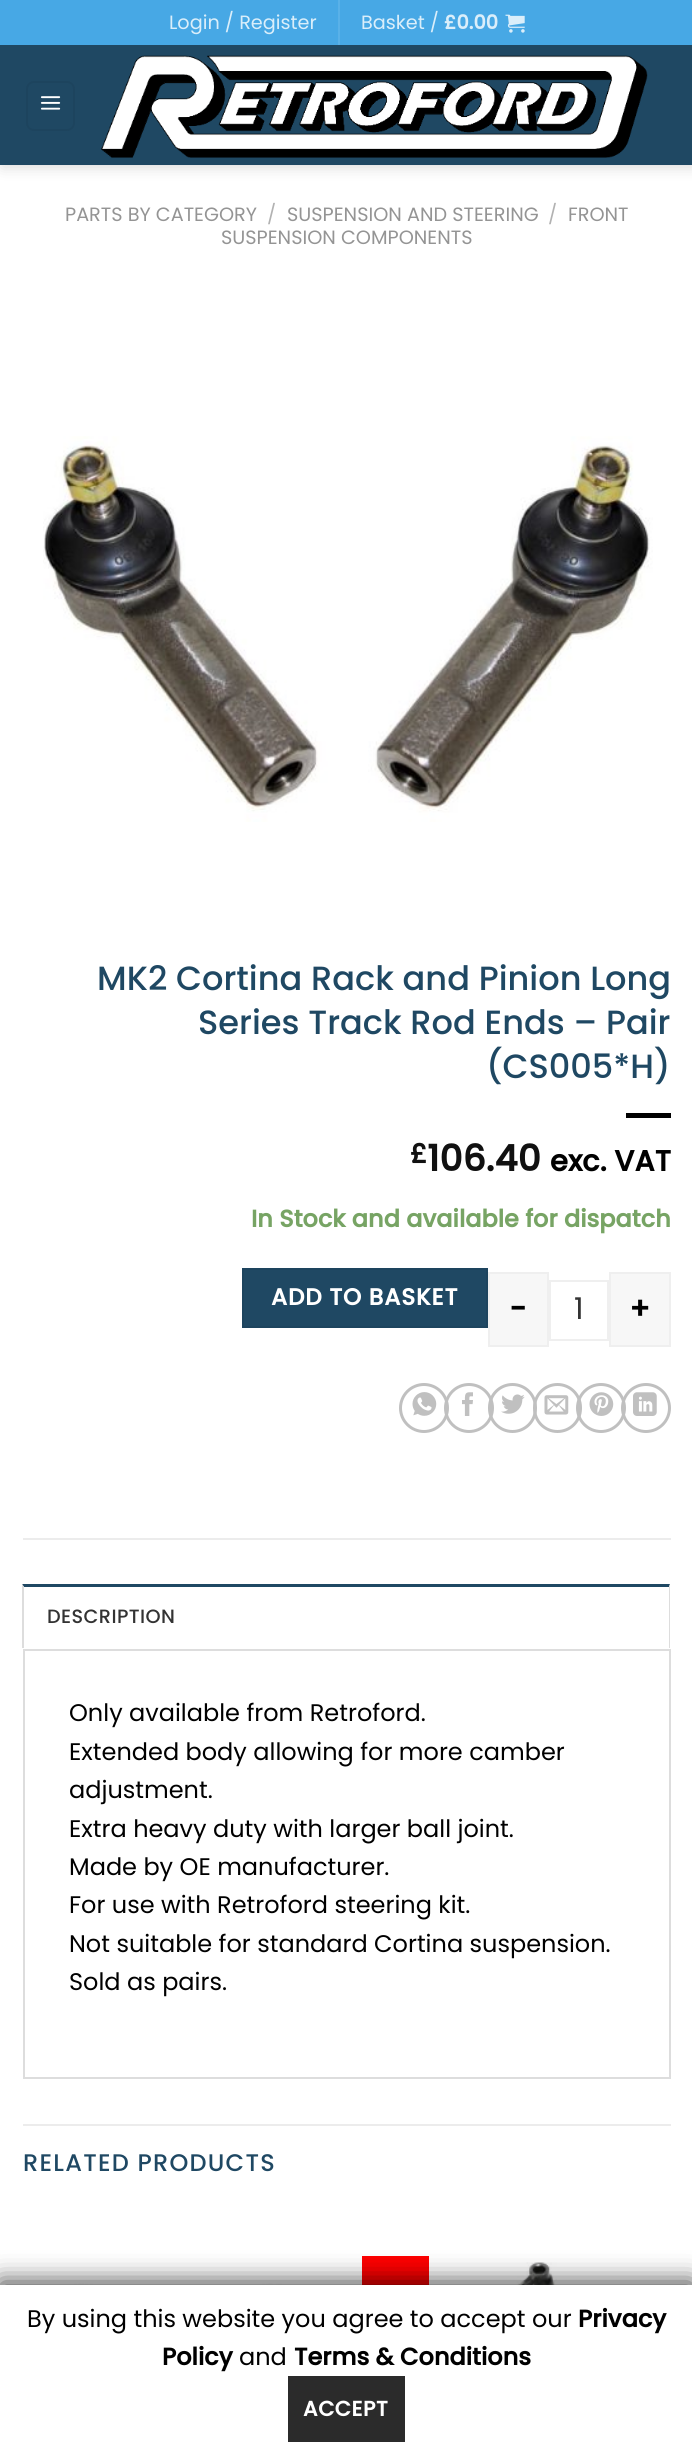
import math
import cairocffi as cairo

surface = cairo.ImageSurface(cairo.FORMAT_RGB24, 692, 2457)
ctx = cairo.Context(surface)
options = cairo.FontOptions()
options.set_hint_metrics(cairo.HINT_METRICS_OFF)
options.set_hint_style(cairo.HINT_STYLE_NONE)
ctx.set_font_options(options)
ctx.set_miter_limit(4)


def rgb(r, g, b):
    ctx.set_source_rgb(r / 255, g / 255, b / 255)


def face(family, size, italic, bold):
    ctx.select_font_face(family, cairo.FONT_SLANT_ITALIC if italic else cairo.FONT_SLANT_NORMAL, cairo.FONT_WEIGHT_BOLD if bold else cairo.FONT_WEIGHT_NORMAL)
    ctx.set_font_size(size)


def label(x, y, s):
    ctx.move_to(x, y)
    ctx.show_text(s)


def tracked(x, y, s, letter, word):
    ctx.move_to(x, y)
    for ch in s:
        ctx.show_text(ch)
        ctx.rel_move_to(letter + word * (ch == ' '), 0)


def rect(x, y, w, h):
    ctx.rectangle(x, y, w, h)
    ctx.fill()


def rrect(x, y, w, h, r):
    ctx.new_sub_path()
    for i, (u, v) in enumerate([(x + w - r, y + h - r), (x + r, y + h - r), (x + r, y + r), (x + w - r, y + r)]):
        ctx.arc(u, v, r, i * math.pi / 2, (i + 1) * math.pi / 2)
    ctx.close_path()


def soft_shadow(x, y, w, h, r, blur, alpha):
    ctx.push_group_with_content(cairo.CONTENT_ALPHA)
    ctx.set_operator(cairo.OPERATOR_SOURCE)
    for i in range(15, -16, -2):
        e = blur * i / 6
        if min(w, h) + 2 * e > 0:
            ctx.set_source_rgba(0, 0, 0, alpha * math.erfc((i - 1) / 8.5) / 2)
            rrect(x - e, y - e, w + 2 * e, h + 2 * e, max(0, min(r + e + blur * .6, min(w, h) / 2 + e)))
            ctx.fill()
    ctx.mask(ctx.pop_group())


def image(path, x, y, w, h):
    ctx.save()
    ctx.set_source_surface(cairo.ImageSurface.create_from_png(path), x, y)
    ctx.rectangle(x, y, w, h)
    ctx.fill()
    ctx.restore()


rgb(255, 255, 255)
ctx.paint()
rgb(0, 0, 0)
soft_shadow(2, 2, 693, 165, 0, 7.5, 0.15)
rgb(71, 168, 229)
rect(0, 0, 692, 45)
face('Poppins', 19.25, 0, 0)
rgb(218, 238, 250)
label(169, 29, 'Login / Register')
rgb(89, 177, 232)
rect(338, 0, 2, 45)
rgb(218, 238, 250)
label(361, 29, 'Basket /')
face('Poppins', 19.25, 0, 1)
label(444, 29, '£0.00')
image('image0.png', 505, 14, 20, 19)
rgb(31, 72, 99)
rect(0, 45, 692, 120)
rrect(27, 82, 47, 48, 7)
rgb(29, 68, 94)
ctx.stroke()
image('image1.png', 40, 96, 21, 14)
image('image2.png', 101, 55, 547, 103)
face('Poppins', 19.25, 0, 0)
rgb(148, 148, 148)
label(65, 221, 'PARTS BY CATEGORY')
rgb(178, 178, 178)
label(267, 221, '/')
rgb(148, 148, 148)
label(287, 221, 'SUSPENSION AND STEERING')
rgb(178, 178, 178)
label(548, 221, '/')
rgb(148, 148, 148)
label(568, 221, 'FRONT')
label(221, 244, 'SUSPENSION COMPONENTS')
image('image3.png', 43, 436, 610, 386)
face('Poppins Medium', 33.6, 0, 0)
rgb(31, 72, 99)
label(97, 990, 'MK2 Cortina Rack and Pinion Long')
label(198, 1034, 'Series Track Rod Ends – Pair')
label(486, 1078, '(CS005*H)')
rgb(0, 0, 0)
rect(626, 1113, 45, 5)
face('Poppins', 27, 0, 1)
rgb(17, 17, 17)
label(410, 1163, '£')
face('Poppins', 36, 0, 1)
label(427, 1171, '106.40')
face('Poppins', 29, 0, 1)
rgb(0, 0, 0)
label(550, 1171, 'exc. VAT')
face('Poppins', 24, 0, 1)
rgb(119, 164, 100)
label(251, 1227, 'In Stock and available for dispatch')
rgb(31, 72, 99)
ctx.rectangle(243, 1269, 244, 58)
ctx.fill_preserve()
rgb(29, 68, 94)
ctx.stroke()
face('Poppins', 23.25, 0, 1)
rgb(255, 255, 255)
tracked(271, 1305, 'ADD TO BASKET', 0.75, 0)
rgb(247, 247, 247)
ctx.rectangle(489, 1273, 59, 73)
ctx.fill_preserve()
rgb(239, 239, 239)
ctx.stroke()
face('Poppins', 30, 0, 1)
rgb(0, 0, 0)
tracked(509, 1319, '-', 1, 0)
ctx.rectangle(550, 1281, 58, 59)
rgb(239, 239, 239)
ctx.stroke()
face('Poppins', 30, 0, 0)
rgb(51, 51, 51)
label(574, 1319, '1')
rgb(247, 247, 247)
ctx.rectangle(610, 1273, 60, 73)
ctx.fill_preserve()
rgb(239, 239, 239)
ctx.stroke()
face('Poppins', 30, 0, 1)
rgb(0, 0, 0)
tracked(629, 1319, '+', 1, 0)
ctx.new_path()
ctx.arc(424, 1408, 23.5, 0, 2 * math.pi)
rgb(192, 192, 192)
ctx.set_line_width(3)
ctx.stroke()
image('image4.png', 412, 1392, 25, 24)
ctx.arc(469, 1408, 23.5, 0, 2 * math.pi)
ctx.stroke()
image('image5.png', 462, 1392, 11, 24)
rrect(489.5, 1384.5, 46, 47, 23)
ctx.stroke()
image('image6.png', 501, 1394, 24, 20)
rrect(534.5, 1384.5, 46, 47, 23)
ctx.stroke()
image('image7.png', 544, 1395, 25, 20)
ctx.arc(601, 1408, 23.5, 0, 2 * math.pi)
ctx.stroke()
image('image8.png', 589, 1392, 25, 24)
ctx.arc(646, 1408, 23.5, 0, 2 * math.pi)
ctx.stroke()
image('image9.png', 633, 1392, 24, 24)
rgb(236, 236, 236)
rect(23, 1538, 648, 2)
rgb(31, 72, 99)
ctx.new_path()
ctx.move_to(22, 1584)
ctx.line_to(670, 1584)
ctx.line_to(669, 1587)
ctx.line_to(24, 1587)
ctx.close_path()
ctx.fill()
rgb(221, 221, 221)
ctx.new_path()
ctx.move_to(670, 1584)
ctx.line_to(670, 1648)
ctx.line_to(669, 1648)
ctx.line_to(669, 1587)
ctx.close_path()
ctx.fill()
ctx.new_path()
ctx.move_to(22, 1648)
ctx.line_to(22, 1584)
ctx.line_to(24, 1587)
ctx.line_to(24, 1648)
ctx.close_path()
ctx.fill()
face('Poppins Medium', 19.25, 0, 0)
rgb(51, 51, 51)
tracked(47, 1623, 'DESCRIPTION', 0.4, 0)
ctx.rectangle(24, 1650, 646, 428)
rgb(221, 221, 221)
ctx.set_line_width(2)
ctx.stroke()
face('Poppins', 24, 0, 0)
rgb(0, 0, 0)
label(69, 1721, 'Only available from Retroford.')
label(69, 1760, 'Extended body allowing for more camber')
label(69, 1798, 'adjustment.')
label(69, 1837, 'Extra heavy duty with larger ball joint.')
label(69, 1875, 'Made by OE manufacturer.')
label(69, 1913, 'For use with Retroford steering kit.')
label(69, 1952, 'Not suitable for standard Cortina suspension.')
label(69, 1990, 'Sold as pairs.')
rgb(236, 236, 236)
rect(23, 2124, 648, 2)
face('Poppins Medium', 24, 0, 0)
rgb(31, 72, 99)
tracked(23, 2171, 'RELATED PRODUCTS', 1.25, 0)
image('image10.png', 33, 2283, 290, 2)
rgb(255, 0, 0)
rect(362, 2256, 67, 29)
image('image11.png', 429, 2262, 208, 23)
rgb(0, 0, 0)
soft_shadow(0, 2282, 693, 172, 0, 13, 0.75)
rgb(255, 255, 255)
rect(0, 2285, 692, 172)
face('Poppins', 24, 0, 0)
rgb(0, 0, 0)
label(27, 2327, 'By using this website you agree to accept our')
face('Poppins', 24, 0, 1)
label(578, 2327, 'Privacy')
label(162, 2365, 'Policy')
face('Poppins', 24, 0, 0)
label(239, 2365, 'and')
face('Poppins', 24, 0, 1)
label(294, 2365, 'Terms & Conditions')
rgb(43, 43, 43)
rect(288, 2376, 117, 66)
face('Poppins', 21, 0, 1)
rgb(255, 255, 255)
tracked(303, 2416, 'ACCEPT', 0.5, 0)
surface.write_to_png('render.png')
